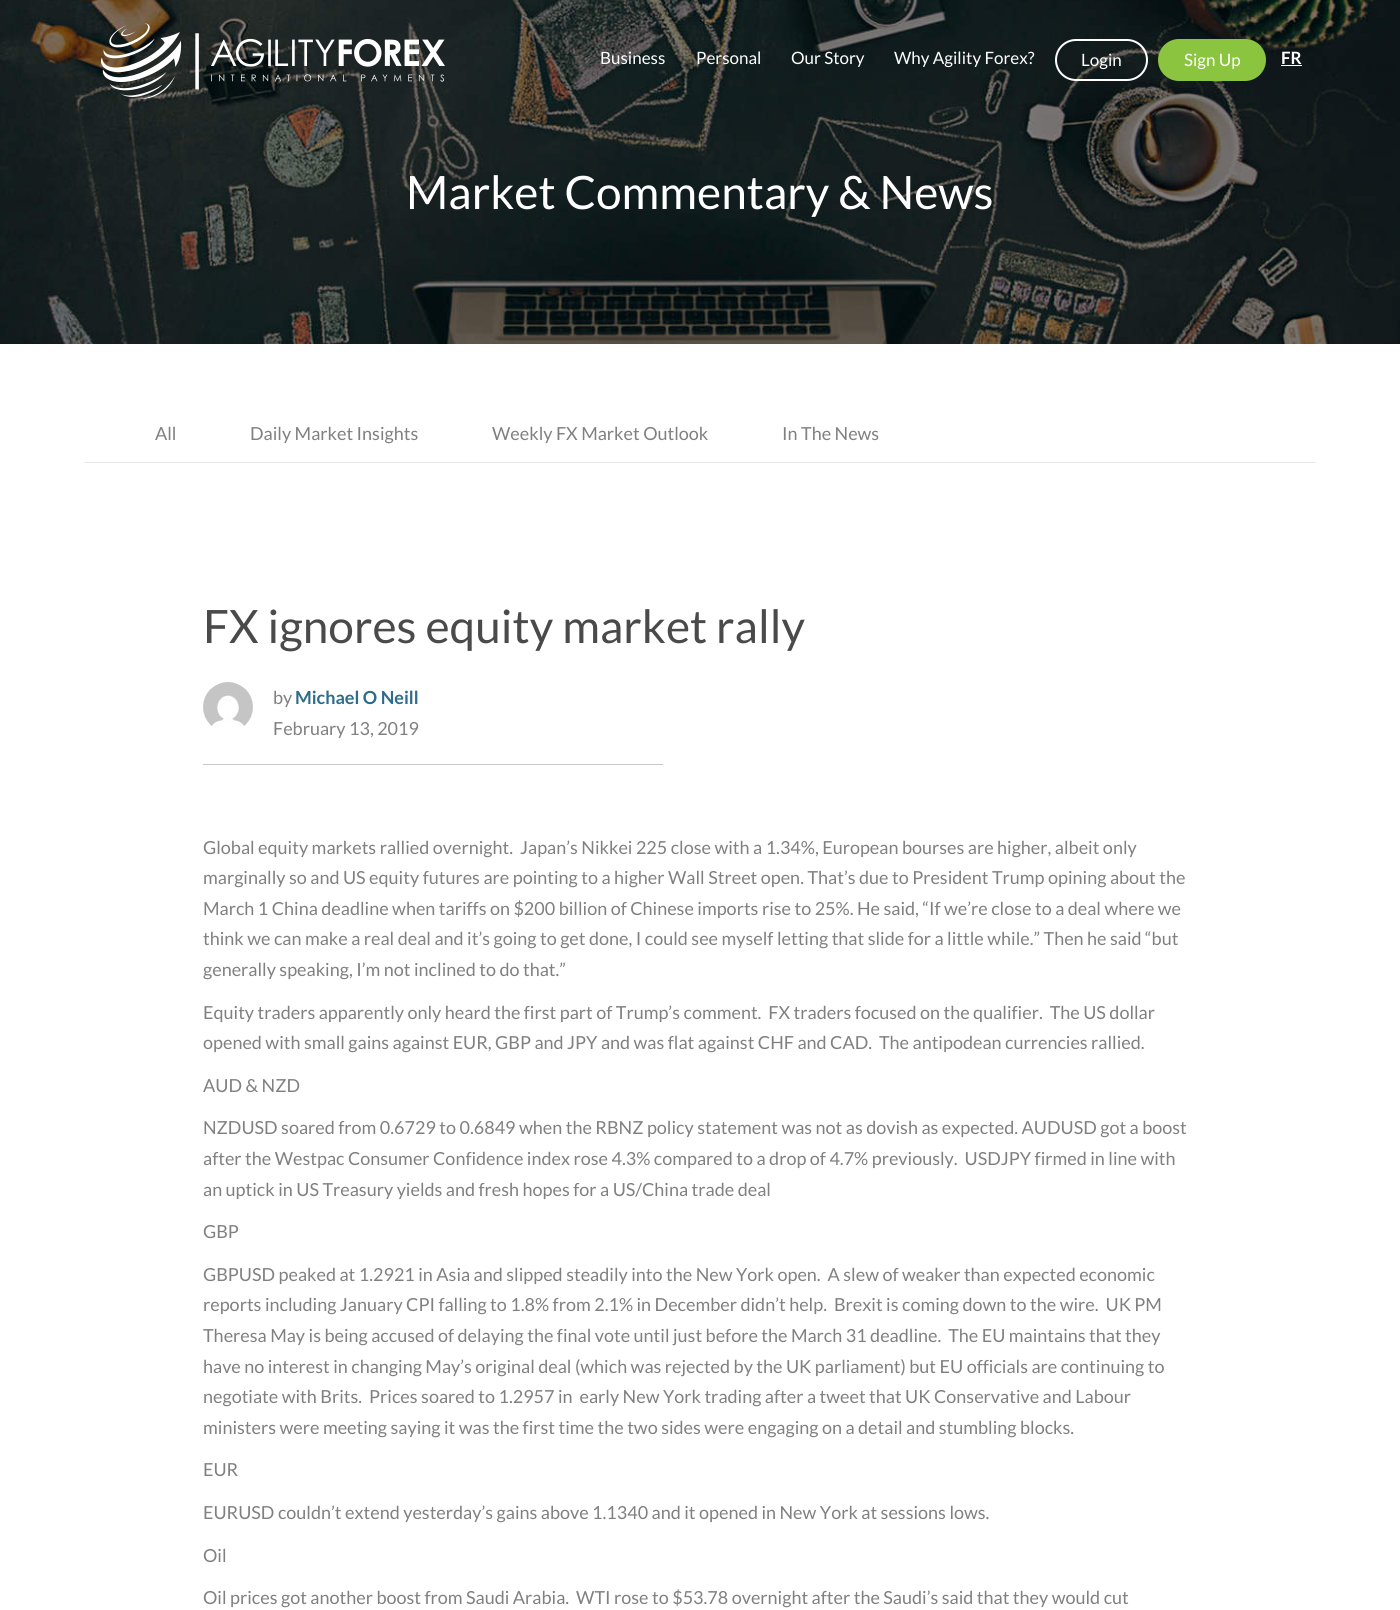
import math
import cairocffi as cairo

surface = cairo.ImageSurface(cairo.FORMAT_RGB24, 1400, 1610)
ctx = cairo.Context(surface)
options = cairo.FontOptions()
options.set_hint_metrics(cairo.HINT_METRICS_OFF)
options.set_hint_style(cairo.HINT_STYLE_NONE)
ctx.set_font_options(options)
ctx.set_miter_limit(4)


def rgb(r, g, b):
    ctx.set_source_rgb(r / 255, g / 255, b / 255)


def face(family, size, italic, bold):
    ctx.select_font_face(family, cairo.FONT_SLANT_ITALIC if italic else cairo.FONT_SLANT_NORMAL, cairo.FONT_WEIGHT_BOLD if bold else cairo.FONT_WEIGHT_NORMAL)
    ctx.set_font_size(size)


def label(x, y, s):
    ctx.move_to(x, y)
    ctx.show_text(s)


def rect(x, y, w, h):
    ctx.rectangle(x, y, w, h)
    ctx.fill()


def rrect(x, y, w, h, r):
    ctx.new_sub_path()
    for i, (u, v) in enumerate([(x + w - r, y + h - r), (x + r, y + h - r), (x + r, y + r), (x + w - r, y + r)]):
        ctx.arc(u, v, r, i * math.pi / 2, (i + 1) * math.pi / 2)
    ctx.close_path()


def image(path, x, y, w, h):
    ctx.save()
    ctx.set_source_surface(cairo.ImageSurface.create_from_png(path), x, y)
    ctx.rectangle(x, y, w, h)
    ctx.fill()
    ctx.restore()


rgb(255, 255, 255)
ctx.paint()
image('image1.png', 0, 0, 1400, 344)
image('image0.png', 101, 23, 344, 76)
face('Lato', 17, 0, 0)
rgb(255, 255, 255)
label(600, 64, 'Business')
label(696, 64, 'Personal')
label(791, 64, 'Our Story')
label(894, 64, 'Why Agility Forex?')
rrect(1056, 40, 91, 40, 20)
ctx.stroke()
label(1081, 66, 'Login')
rgb(139, 196, 62)
rrect(1159, 40, 106, 40, 20)
ctx.fill_preserve()
ctx.stroke()
rgb(255, 255, 255)
label(1184, 66, 'Sign Up')
face('Lato', 17, 0, 1)
label(1281, 64, 'FR')
rect(1281, 65, 21, 1)
face('Lato', 46, 0, 0)
label(406, 209, 'Market Commentary & News')
rgb(230, 230, 230)
rect(85, 462, 1230, 1)
face('Lato', 18, 0, 0)
rgb(128, 128, 128)
label(155, 440, 'All')
label(250, 440, 'Daily Market Insights')
label(492, 440, 'Weekly FX Market Outlook')
label(782, 440, 'In The News')
face('Lato', 46, 0, 0)
rgb(74, 74, 74)
label(203, 643, 'FX ignores equity market rally')
rgb(200, 200, 200)
rect(203, 764, 460, 1)
image('image2.png', 203, 682, 50, 47)
face('Lato', 18, 0, 0)
rgb(128, 128, 128)
label(273, 704, 'by')
face('Lato', 18, 0, 1)
rgb(45, 108, 138)
label(295, 704, 'Michael O Neill')
face('Lato', 18, 0, 0)
rgb(128, 128, 128)
label(273, 735, 'February 13, 2019')
label(203, 854, 'Global equity markets rallied overnight.  Japan’s Nikkei 225 close with a 1.34%, European bourses are higher, albeit only')
label(203, 884, 'marginally so and US equity futures are pointing to a higher Wall Street open. That’s due to President Trump opining about the')
label(203, 915, 'March 1 China deadline when tariffs on $200 billion of Chinese imports rise to 25%. He said, “If we’re close to a deal where we')
label(203, 945, 'think we can make a real deal and it’s going to get done, I could see myself letting that slide for a little while.” Then he said “but')
label(203, 976, 'generally speaking, I’m not inclined to do that.”')
label(203, 1019, 'Equity traders apparently only heard the first part of Trump’s comment.  FX traders focused on the qualifier.  The US dollar')
label(203, 1049, 'opened with small gains against EUR, GBP and JPY and was flat against CHF and CAD.  The antipodean currencies rallied.')
label(203, 1092, 'AUD & NZD')
label(203, 1134, 'NZDUSD soared from 0.6729 to 0.6849 when the RBNZ policy statement was not as dovish as expected. AUDUSD got a boost')
label(203, 1165, 'after the Westpac Consumer Confidence index rose 4.3% compared to a drop of 4.7% previously.  USDJPY firmed in line with')
label(203, 1196, 'an uptick in US Treasury yields and fresh hopes for a US/China trade deal')
label(203, 1238, 'GBP')
label(203, 1281, 'GBPUSD peaked at 1.2921 in Asia and slipped steadily into the New York open.  A slew of weaker than expected economic')
label(203, 1311, 'reports including January CPI falling to 1.8% from 2.1% in December didn’t help.  Brexit is coming down to the wire.  UK PM')
label(203, 1342, 'Theresa May is being accused of delaying the final vote until just before the March 31 deadline.  The EU maintains that they')
label(203, 1373, 'have no interest in changing May’s original deal (which was rejected by the UK parliament) but EU officials are continuing to')
label(203, 1403, 'negotiate with Brits.  Prices soared to 1.2957 in  early New York trading after a tweet that UK Conservative and Labour')
label(203, 1434, 'ministers were meeting saying it was the first time the two sides were engaging on a detail and stumbling blocks.')
label(203, 1476, 'EUR')
label(203, 1519, 'EURUSD couldn’t extend yesterday’s gains above 1.1340 and it opened in New York at sessions lows.')
label(203, 1562, 'Oil')
label(203, 1604, 'Oil prices got another boost from Saudi Arabia.  WTI rose to $53.78 overnight after the Saudi’s said that they would cut')
surface.write_to_png('render.png')
